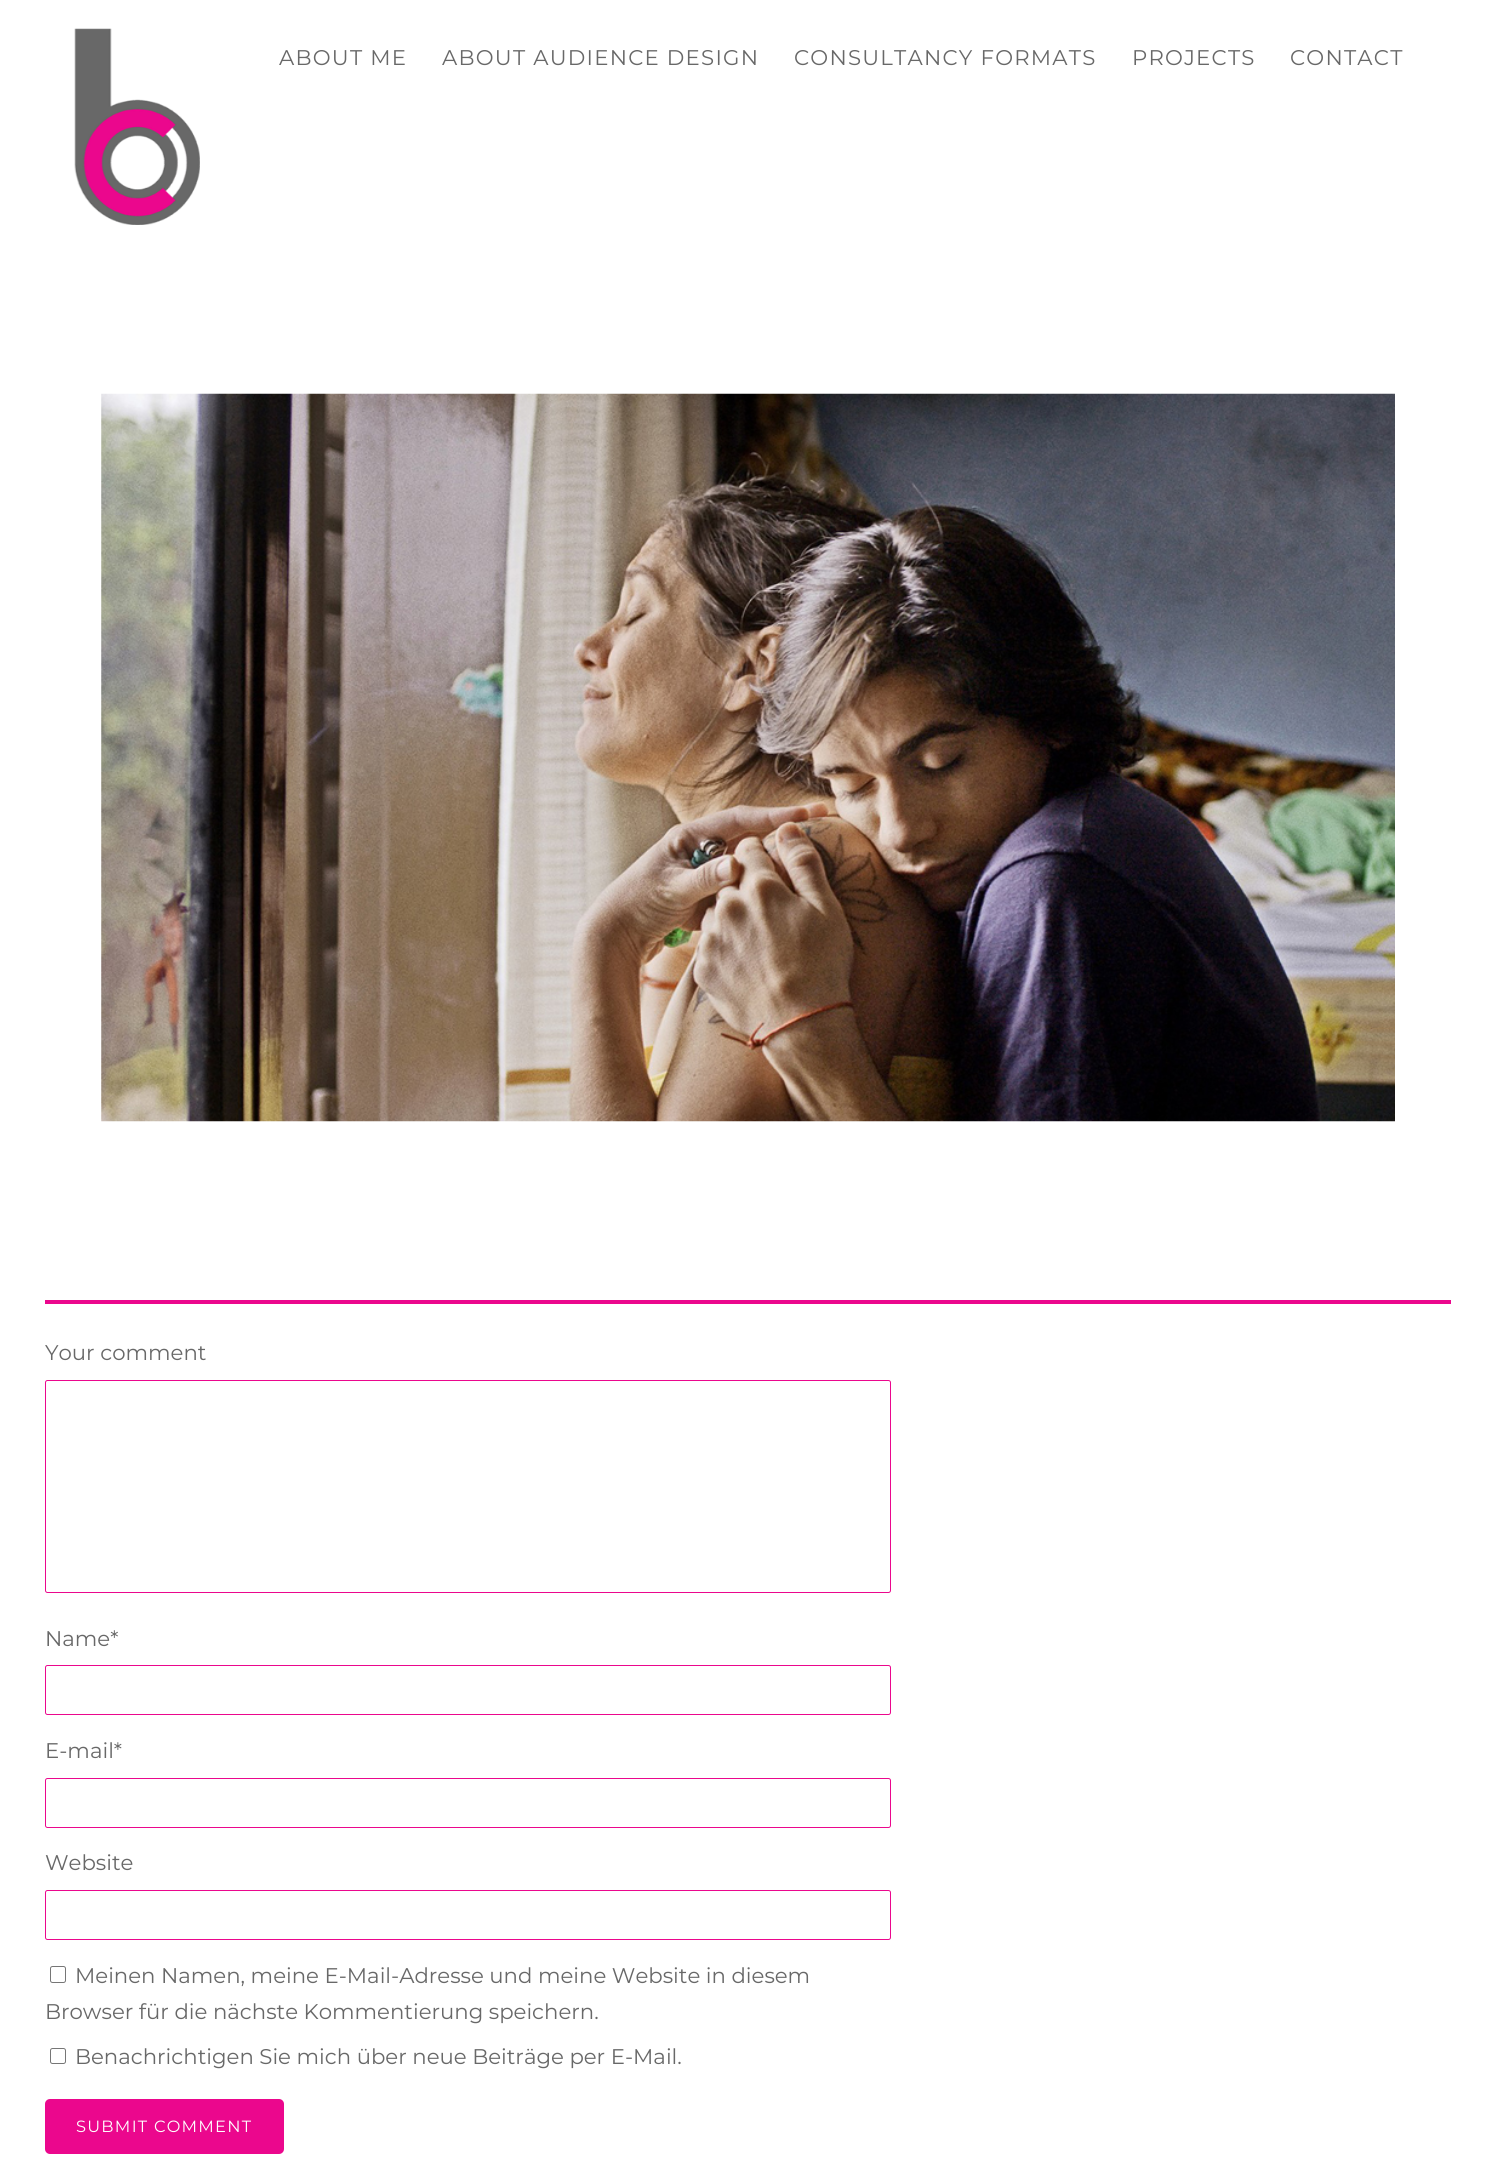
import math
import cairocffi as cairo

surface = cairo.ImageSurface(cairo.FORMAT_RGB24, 1496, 2184)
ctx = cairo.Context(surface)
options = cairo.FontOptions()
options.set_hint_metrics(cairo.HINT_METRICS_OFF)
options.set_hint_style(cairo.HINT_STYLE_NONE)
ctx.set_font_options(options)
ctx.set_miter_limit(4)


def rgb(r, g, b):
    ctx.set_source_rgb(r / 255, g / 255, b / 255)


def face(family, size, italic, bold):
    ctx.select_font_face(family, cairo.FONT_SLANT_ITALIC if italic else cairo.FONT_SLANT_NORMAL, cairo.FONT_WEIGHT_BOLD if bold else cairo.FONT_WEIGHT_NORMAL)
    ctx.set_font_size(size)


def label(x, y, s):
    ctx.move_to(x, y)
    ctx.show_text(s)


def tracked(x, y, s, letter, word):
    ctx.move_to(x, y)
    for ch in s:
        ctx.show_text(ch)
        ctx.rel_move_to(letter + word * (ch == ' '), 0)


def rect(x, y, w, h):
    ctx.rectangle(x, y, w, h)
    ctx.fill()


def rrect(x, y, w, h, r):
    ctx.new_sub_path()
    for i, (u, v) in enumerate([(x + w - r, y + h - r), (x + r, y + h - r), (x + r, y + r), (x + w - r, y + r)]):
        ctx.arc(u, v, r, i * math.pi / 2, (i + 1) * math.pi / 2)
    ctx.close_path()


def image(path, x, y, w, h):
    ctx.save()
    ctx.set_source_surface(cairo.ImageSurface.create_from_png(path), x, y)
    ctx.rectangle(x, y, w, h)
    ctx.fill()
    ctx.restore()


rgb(255, 255, 255)
ctx.paint()
image('image0.png', 74, 28, 126, 197)
face('Montserrat Thin', 21.25, 0, 0)
rgb(104, 104, 104)
tracked(279, 65, 'ABOUT ME', 1.25, 0)
tracked(442, 65, 'ABOUT AUDIENCE DESIGN', 1.25, 0)
tracked(794, 65, 'CONSULTANCY FORMATS', 1.25, 0)
tracked(1132, 65, 'PROJECTS', 1.25, 0)
tracked(1290, 65, 'CONTACT', 1.25, 0)
image('image1.png', 101, 393, 1294, 729)
rgb(235, 7, 141)
rect(45, 1300, 1406, 4)
rgb(104, 104, 104)
label(45, 1360, 'Your comment')
rrect(45.5, 1380.5, 845, 212, 2)
rgb(235, 7, 141)
ctx.set_line_width(1)
ctx.stroke()
rgb(104, 104, 104)
label(45, 1646, 'Name*')
rrect(45.5, 1665.5, 845, 49, 2)
rgb(235, 7, 141)
ctx.stroke()
rgb(104, 104, 104)
label(45, 1758, 'E-mail*')
rrect(45.5, 1778.5, 845, 49, 2)
rgb(235, 7, 141)
ctx.stroke()
rgb(104, 104, 104)
label(45, 1870, 'Website')
rrect(45.5, 1890.5, 845, 49, 2)
rgb(235, 7, 141)
ctx.stroke()
rrect(50.5, 1966.5, 15, 16, 2)
rgb(118, 118, 118)
ctx.stroke()
rgb(104, 104, 104)
label(75, 1983, 'Meinen Namen, meine E-Mail-Adresse und meine Website in diesem')
label(45, 2019, 'Browser für die nächste Kommentierung speichern.')
rrect(50.5, 2048.5, 15, 15, 2)
rgb(118, 118, 118)
ctx.stroke()
rgb(104, 104, 104)
label(75, 2064, 'Benachrichtigen Sie mich über neue Beiträge per E-Mail.')
rgb(235, 7, 141)
rrect(45, 2099, 239, 55, 5)
ctx.fill()
face('Montserrat Thin', 16.25, 0, 0)
rgb(255, 255, 255)
tracked(76, 2132, 'SUBMIT COMMENT', 1.25, 0)
surface.write_to_png('render.png')
